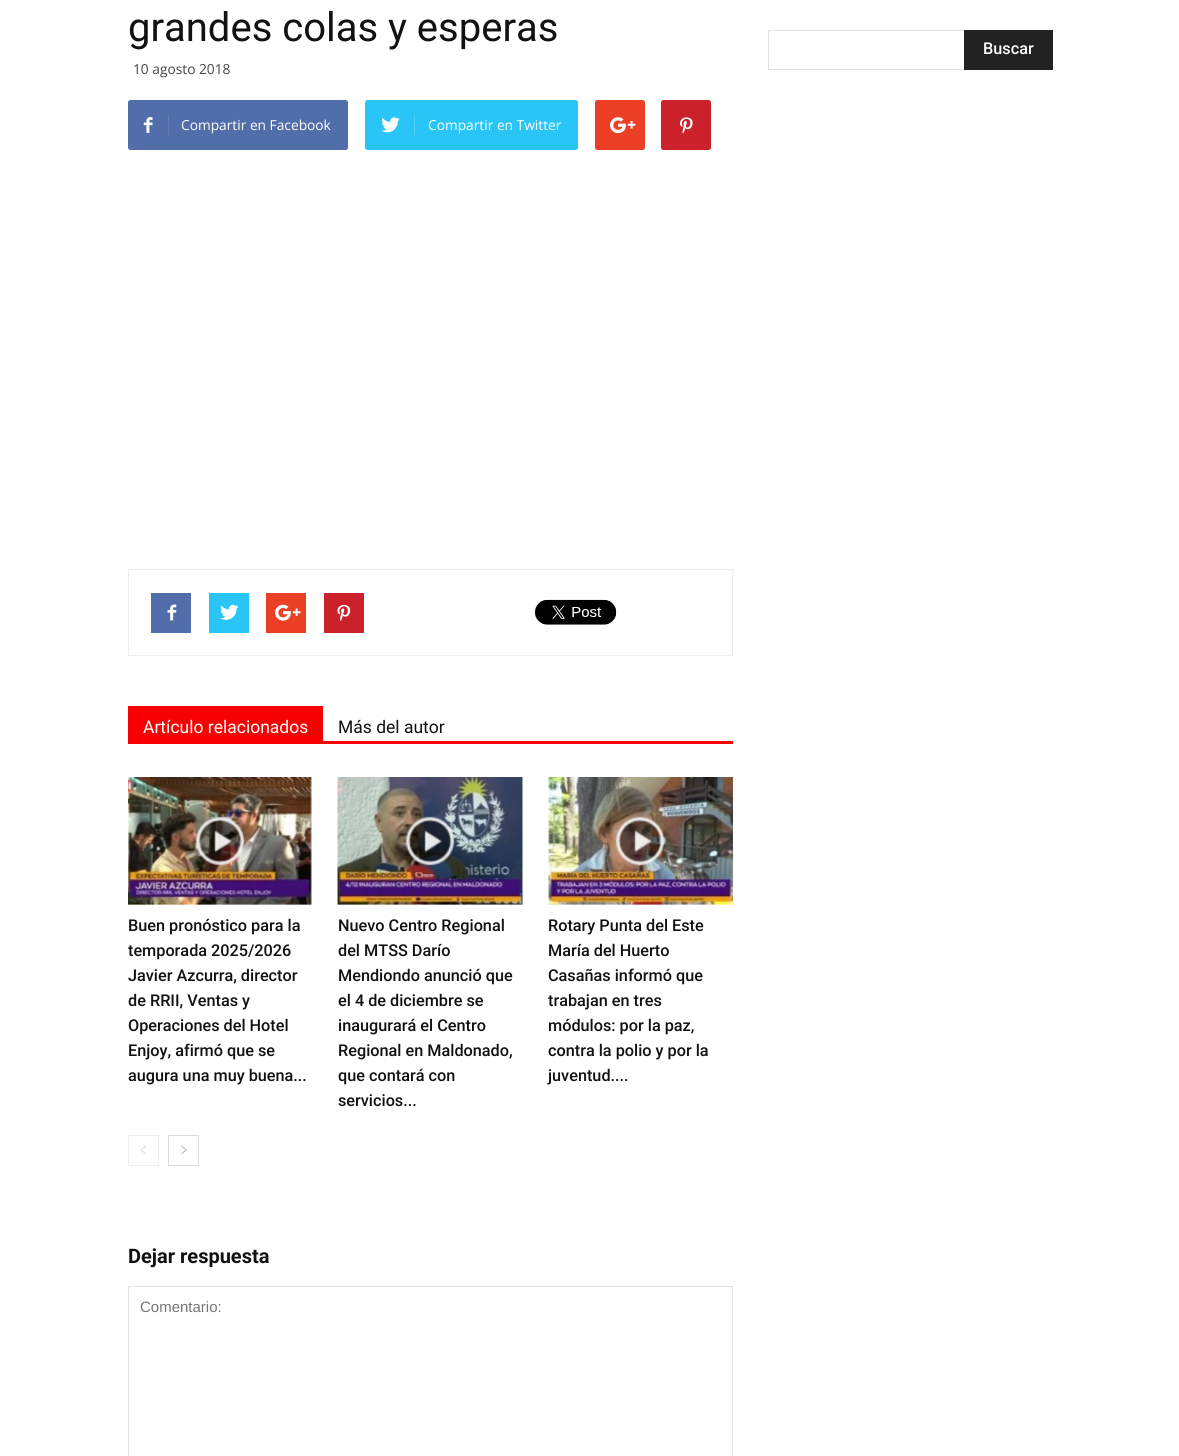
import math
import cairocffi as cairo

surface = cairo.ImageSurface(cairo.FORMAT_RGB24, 1179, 1456)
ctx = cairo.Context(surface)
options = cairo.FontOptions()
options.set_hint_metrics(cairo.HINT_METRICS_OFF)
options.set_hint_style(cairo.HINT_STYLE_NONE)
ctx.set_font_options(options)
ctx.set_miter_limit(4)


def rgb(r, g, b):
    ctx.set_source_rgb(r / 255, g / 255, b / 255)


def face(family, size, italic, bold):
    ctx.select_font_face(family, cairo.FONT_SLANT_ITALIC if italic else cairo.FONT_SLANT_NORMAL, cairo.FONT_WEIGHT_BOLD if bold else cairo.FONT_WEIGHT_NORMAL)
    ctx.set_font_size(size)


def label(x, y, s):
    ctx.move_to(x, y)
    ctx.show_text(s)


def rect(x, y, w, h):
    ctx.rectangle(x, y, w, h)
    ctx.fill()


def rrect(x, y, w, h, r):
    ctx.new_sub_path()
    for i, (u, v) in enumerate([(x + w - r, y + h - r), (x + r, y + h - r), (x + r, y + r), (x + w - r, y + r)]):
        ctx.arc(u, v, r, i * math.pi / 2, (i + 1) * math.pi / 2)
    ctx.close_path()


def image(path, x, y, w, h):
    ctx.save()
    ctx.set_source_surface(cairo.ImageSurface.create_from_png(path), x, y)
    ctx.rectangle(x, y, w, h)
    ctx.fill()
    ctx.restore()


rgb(255, 255, 255)
ctx.paint()
face('Roboto', 40, 0, 0)
rgb(17, 17, 17)
label(128, 41, 'grandes colas y esperas')
face('Open Sans', 13.75, 0, 0)
rgb(68, 68, 68)
label(133, 74, '10 agosto 2018')
rgb(81, 110, 171)
rrect(128, 100, 220, 50, 2.5)
ctx.fill()
image('image0.png', 143, 117, 10, 16)
rgb(98, 125, 179)
rect(168, 115, 1, 20)
rgb(255, 255, 255)
label(181, 130, 'Compartir en Facebook')
rgb(41, 197, 246)
rrect(365, 100, 213, 50, 2.5)
ctx.fill()
image('image1.png', 381, 117, 19, 16)
rgb(84, 209, 248)
rect(414, 115, 1, 20)
rgb(255, 255, 255)
label(428, 130, 'Compartir en Twitter')
rgb(235, 64, 38)
rrect(595, 100, 50, 50, 2.5)
ctx.fill()
image('image2.png', 610, 117, 26, 17)
rgb(202, 33, 42)
rrect(661, 100, 50, 50, 2.5)
ctx.fill()
image('image3.png', 680, 117, 13, 17)
ctx.rectangle(128.5, 569.5, 604, 86)
rgb(237, 237, 237)
ctx.set_line_width(1)
ctx.stroke()
rgb(81, 110, 171)
rect(151, 593, 40, 40)
image('image4.png', 167, 604, 10, 17)
rgb(41, 197, 246)
rect(209, 593, 40, 40)
image('image5.png', 220, 604, 19, 16)
rgb(235, 64, 38)
rect(266, 593, 40, 40)
image('image6.png', 275, 604, 26, 17)
rgb(202, 33, 42)
rect(324, 593, 40, 40)
image('image7.png', 337, 604, 14, 17)
image('image8.png', 535, 599, 82, 26)
rgb(247, 1, 2)
rect(128, 741, 605, 3)
rect(128, 706, 195, 35)
face('Roboto', 17.5, 0, 0)
rgb(255, 255, 255)
label(143, 733, 'Artículo relacionados')
rgb(17, 17, 17)
label(338, 733, 'Más del autor')
image('image9.png', 128, 777, 184, 128)
image('image10.png', 195, 816, 50, 50)
face('Roboto Medium', 16.25, 0, 0)
label(128, 931, 'Buen pronóstico para la')
label(128, 956, 'temporada 2025/2026')
label(128, 981, 'Javier Azcurra, director')
label(128, 1006, 'de RRII, Ventas y')
label(128, 1031, 'Operaciones del Hotel')
label(128, 1056, 'Enjoy, afirmó que se')
label(128, 1081, 'augura una muy buena...')
image('image11.png', 337, 777, 186, 128)
image('image12.png', 405, 816, 50, 50)
label(338, 931, 'Nuevo Centro Regional')
label(338, 956, 'del MTSS Darío')
label(338, 981, 'Mendiondo anunció que')
label(338, 1006, 'el 4 de diciembre se')
label(338, 1031, 'inaugurará el Centro')
label(338, 1056, 'Regional en Maldonado,')
label(338, 1081, 'que contará con')
label(338, 1106, 'servicios...')
image('image13.png', 548, 777, 185, 128)
image('image14.png', 615, 816, 50, 50)
label(548, 931, 'Rotary Punta del Este')
label(548, 956, 'María del Huerto')
label(548, 981, 'Casañas informó que')
label(548, 1006, 'trabajan en tres')
label(548, 1031, 'módulos: por la paz,')
label(548, 1056, 'contra la polio y por la')
label(548, 1081, 'juventud....')
ctx.rectangle(128.5, 1135.5, 30, 30)
rgb(238, 238, 238)
ctx.stroke()
image('image15.png', 141, 1145, 6, 10)
ctx.rectangle(168.5, 1135.5, 30, 30)
rgb(220, 220, 220)
ctx.stroke()
image('image16.png', 181, 1145, 6, 10)
face('Roboto', 20, 0, 1)
rgb(17, 17, 17)
label(128, 1263, 'Dejar respuesta')
ctx.rectangle(128.5, 1286.5, 604, 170)
rgb(225, 225, 225)
ctx.stroke()
face('Liberation Sans', 15, 0, 0)
rgb(117, 117, 117)
label(140, 1312, 'Comentario:')
rgb(225, 225, 225)
rect(768, 30, 196, 1)
rect(768, 69, 196, 1)
rect(768, 30, 1, 40)
rgb(34, 34, 34)
rect(964, 30, 89, 40)
face('Roboto Medium', 16.25, 0, 0)
rgb(255, 255, 255)
label(983, 54, 'Buscar')
surface.write_to_png('render.png')
